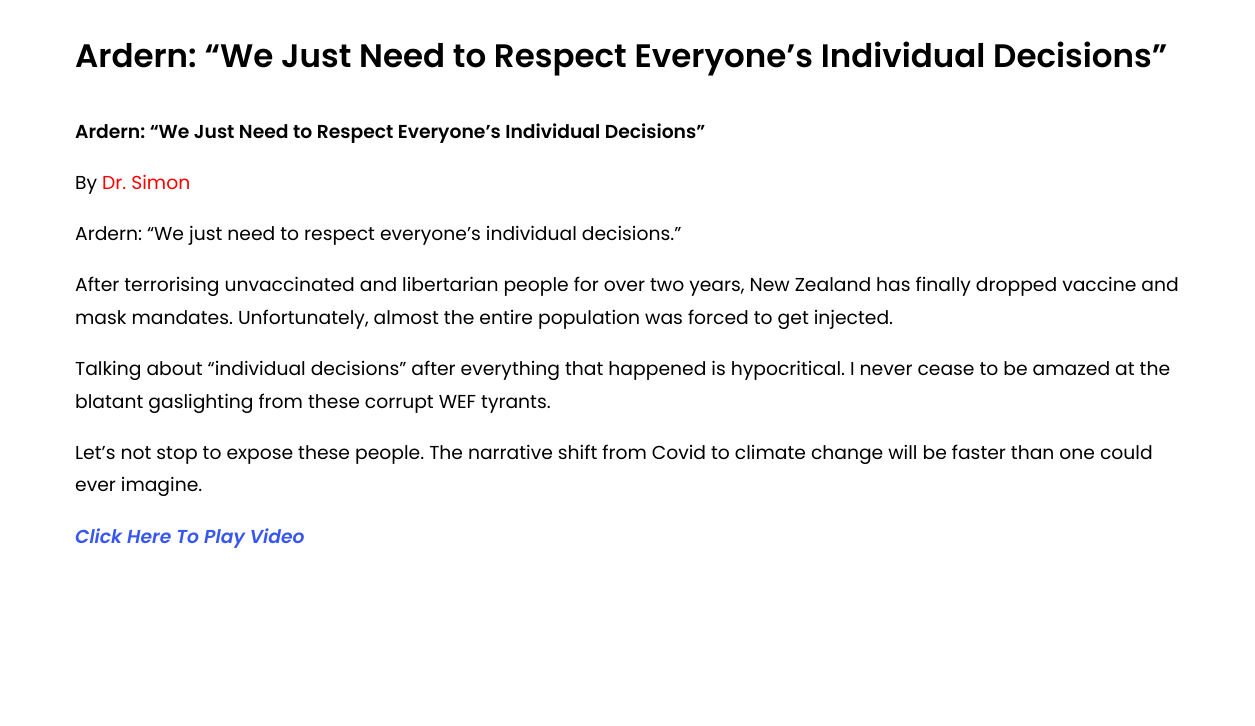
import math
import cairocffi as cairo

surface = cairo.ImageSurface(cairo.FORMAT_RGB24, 1255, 726)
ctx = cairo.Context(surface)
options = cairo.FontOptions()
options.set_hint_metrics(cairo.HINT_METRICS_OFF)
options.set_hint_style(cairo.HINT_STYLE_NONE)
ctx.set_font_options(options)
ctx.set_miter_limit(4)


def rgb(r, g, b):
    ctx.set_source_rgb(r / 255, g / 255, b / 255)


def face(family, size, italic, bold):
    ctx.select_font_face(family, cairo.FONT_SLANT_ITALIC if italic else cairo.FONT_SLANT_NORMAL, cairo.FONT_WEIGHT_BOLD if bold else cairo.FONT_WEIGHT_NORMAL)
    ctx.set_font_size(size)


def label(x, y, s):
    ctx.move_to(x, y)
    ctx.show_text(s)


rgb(255, 255, 255)
ctx.paint()
face('Poppins SemiBold', 32.5, 0, 0)
rgb(0, 0, 0)
label(75, 67, 'Ardern: “We Just Need to Respect Everyone’s Individual Decisions”')
face('Poppins SemiBold', 18.75, 0, 0)
label(75, 138, 'Ardern: “We Just Need to Respect Everyone’s Individual Decisions”')
face('Poppins', 18.75, 0, 0)
label(75, 189, 'By')
rgb(255, 0, 0)
label(102, 189, 'Dr. Simon')
rgb(0, 0, 0)
label(75, 240, 'Ardern: “We just need to respect everyone’s individual decisions.”')
label(75, 291, 'After terrorising unvaccinated and libertarian people for over two years, New Zealand has finally dropped vaccine and')
label(75, 324, 'mask mandates. Unfortunately, almost the entire population was forced to get injected.')
label(75, 375, 'Talking about “individual decisions” after everything that happened is hypocritical. I never cease to be amazed at the')
label(75, 408, 'blatant gaslighting from these corrupt WEF tyrants.')
label(75, 459, 'Let’s not stop to expose these people. The narrative shift from Covid to climate change will be faster than one could')
label(75, 491, 'ever imagine.')
face('Poppins SemiBold', 18.75, 1, 0)
rgb(56, 87, 241)
label(75, 543, 'Click Here To Play Video')
surface.write_to_png('render.png')
